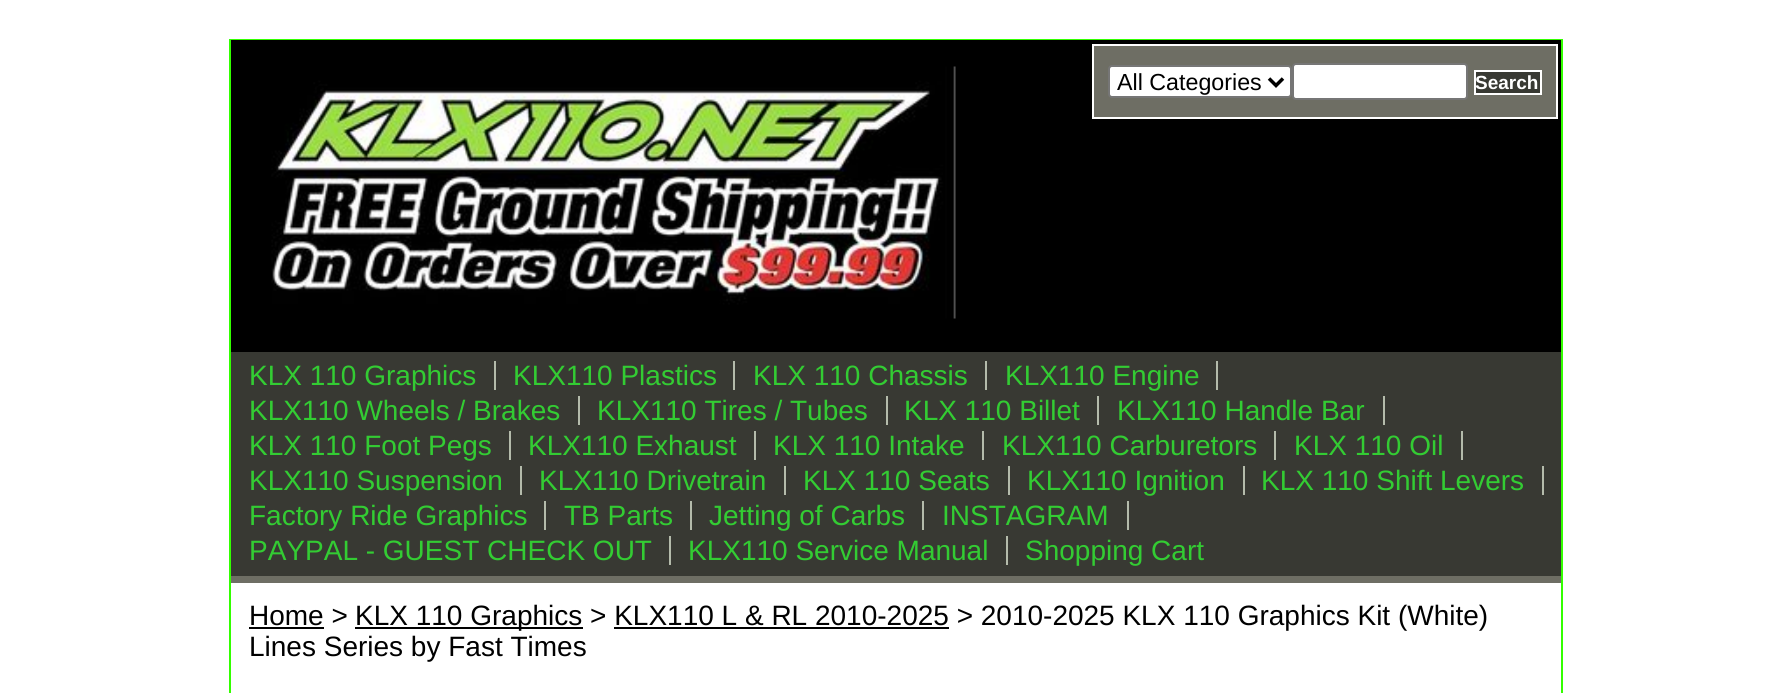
import math
import cairocffi as cairo

surface = cairo.ImageSurface(cairo.FORMAT_RGB24, 1791, 693)
ctx = cairo.Context(surface)
options = cairo.FontOptions()
options.set_hint_metrics(cairo.HINT_METRICS_OFF)
options.set_hint_style(cairo.HINT_STYLE_NONE)
ctx.set_font_options(options)
ctx.set_miter_limit(4)


def rgb(r, g, b):
    ctx.set_source_rgb(r / 255, g / 255, b / 255)


def face(family, size, italic, bold):
    ctx.select_font_face(family, cairo.FONT_SLANT_ITALIC if italic else cairo.FONT_SLANT_NORMAL, cairo.FONT_WEIGHT_BOLD if bold else cairo.FONT_WEIGHT_NORMAL)
    ctx.set_font_size(size)


def label(x, y, s):
    ctx.move_to(x, y)
    ctx.show_text(s)


def rect(x, y, w, h):
    ctx.rectangle(x, y, w, h)
    ctx.fill()


def rrect(x, y, w, h, r):
    ctx.new_sub_path()
    for i, (u, v) in enumerate([(x + w - r, y + h - r), (x + r, y + h - r), (x + r, y + r), (x + w - r, y + r)]):
        ctx.arc(u, v, r, i * math.pi / 2, (i + 1) * math.pi / 2)
    ctx.close_path()


def image(path, x, y, w, h):
    ctx.save()
    ctx.set_source_surface(cairo.ImageSurface.create_from_png(path), x, y)
    ctx.rectangle(x, y, w, h)
    ctx.fill()
    ctx.restore()


rgb(255, 255, 255)
ctx.paint()
ctx.rectangle(230, 40, 1332, 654)
rgb(51, 255, 0)
ctx.stroke()
rgb(0, 0, 0)
rect(231, 40, 1330, 312)
image('image0.png', 271, 66, 685, 253)
rgb(110, 110, 100)
ctx.rectangle(1093, 45, 464, 73)
ctx.fill_preserve()
rgb(255, 255, 255)
ctx.stroke()
rrect(1109, 66, 182, 31, 3)
ctx.fill_preserve()
rgb(118, 118, 118)
ctx.stroke()
ctx.new_path()
ctx.move_to(1269, 78.5)
ctx.line_to(1276, 85.5)
ctx.line_to(1283, 78.5)
rgb(0, 0, 0)
ctx.set_line_width(3.5)
ctx.stroke()
face('Liberation Sans', 23.25, 0, 0)
label(1117, 90, 'All Categories')
rgb(255, 255, 255)
rrect(1293, 64, 174, 35, 3)
ctx.fill_preserve()
rgb(118, 118, 118)
ctx.set_line_width(2)
ctx.stroke()
rgb(56, 57, 51)
ctx.rectangle(1475, 71, 66, 23)
ctx.fill_preserve()
rgb(255, 255, 255)
ctx.stroke()
face('Liberation Sans', 19, 0, 1)
label(1475, 89, 'Search')
rgb(56, 57, 51)
rect(231, 352, 1330, 224)
rgb(110, 110, 100)
rect(231, 576, 1330, 7)
face('Liberation Sans', 28, 0, 0)
rgb(51, 204, 51)
label(249, 385, 'KLX 110 Graphics')
rgb(180, 187, 171)
rect(494, 361, 2, 29)
rgb(51, 204, 51)
label(513, 385, 'KLX110 Plastics')
rgb(180, 187, 171)
rect(733, 361, 2, 29)
rgb(51, 204, 51)
label(753, 385, 'KLX 110 Chassis')
rgb(180, 187, 171)
rect(985, 361, 2, 29)
rgb(51, 204, 51)
label(1005, 385, 'KLX110 Engine')
rgb(180, 187, 171)
rect(1216, 361, 2, 29)
rgb(51, 204, 51)
label(249, 420, 'KLX110 Wheels / Brakes')
rgb(180, 187, 171)
rect(578, 396, 2, 29)
rgb(51, 204, 51)
label(597, 420, 'KLX110 Tires / Tubes')
rgb(180, 187, 171)
rect(886, 396, 2, 29)
rgb(51, 204, 51)
label(904, 420, 'KLX 110 Billet')
rgb(180, 187, 171)
rect(1097, 396, 2, 29)
rgb(51, 204, 51)
label(1117, 420, 'KLX110 Handle Bar')
rgb(180, 187, 171)
rect(1383, 396, 2, 29)
rgb(51, 204, 51)
label(249, 455, 'KLX 110 Foot Pegs')
rgb(180, 187, 171)
rect(509, 431, 2, 29)
rgb(51, 204, 51)
label(528, 455, 'KLX110 Exhaust')
rgb(180, 187, 171)
rect(754, 431, 2, 29)
rgb(51, 204, 51)
label(773, 455, 'KLX 110 Intake')
rgb(180, 187, 171)
rect(982, 431, 2, 29)
rgb(51, 204, 51)
label(1002, 455, 'KLX110 Carburetors')
rgb(180, 187, 171)
rect(1274, 431, 2, 29)
rgb(51, 204, 51)
label(1294, 455, 'KLX 110 Oil')
rgb(180, 187, 171)
rect(1461, 431, 2, 29)
rgb(51, 204, 51)
label(249, 490, 'KLX110 Suspension')
rgb(180, 187, 171)
rect(520, 466, 2, 29)
rgb(51, 204, 51)
label(539, 490, 'KLX110 Drivetrain')
rgb(180, 187, 171)
rect(784, 466, 2, 29)
rgb(51, 204, 51)
label(803, 490, 'KLX 110 Seats')
rgb(180, 187, 171)
rect(1008, 466, 2, 29)
rgb(51, 204, 51)
label(1027, 490, 'KLX110 Ignition')
rgb(180, 187, 171)
rect(1243, 466, 2, 29)
rgb(51, 204, 51)
label(1261, 490, 'KLX 110 Shift Levers')
rgb(180, 187, 171)
rect(1542, 466, 2, 29)
rgb(51, 204, 51)
label(249, 525, 'Factory Ride Graphics')
rgb(180, 187, 171)
rect(544, 501, 2, 29)
rgb(51, 204, 51)
label(564, 525, 'TB Parts')
rgb(180, 187, 171)
rect(690, 501, 2, 29)
rgb(51, 204, 51)
label(709, 525, 'Jetting of Carbs')
rgb(180, 187, 171)
rect(922, 501, 2, 29)
rgb(51, 204, 51)
label(942, 525, 'INSTAGRAM')
rgb(180, 187, 171)
rect(1127, 501, 2, 29)
rgb(51, 204, 51)
label(249, 560, 'PAYPAL - GUEST CHECK OUT')
rgb(180, 187, 171)
rect(669, 536, 2, 29)
rgb(51, 204, 51)
label(688, 560, 'KLX110 Service Manual')
rgb(180, 187, 171)
rect(1006, 536, 2, 29)
rgb(51, 204, 51)
label(1025, 560, 'Shopping Cart')
rgb(0, 0, 0)
label(249, 625, 'Home >')
rect(249, 627, 75, 2)
rect(355, 627, 228, 2)
label(355, 625, 'KLX 110 Graphics > KLX110 L & RL 2010-2025 > 2010-2025 KLX 110 Graphics Kit (White)')
rect(614, 627, 335, 2)
label(249, 656, 'Lines Series by Fast Times')
surface.write_to_png('render.png')
